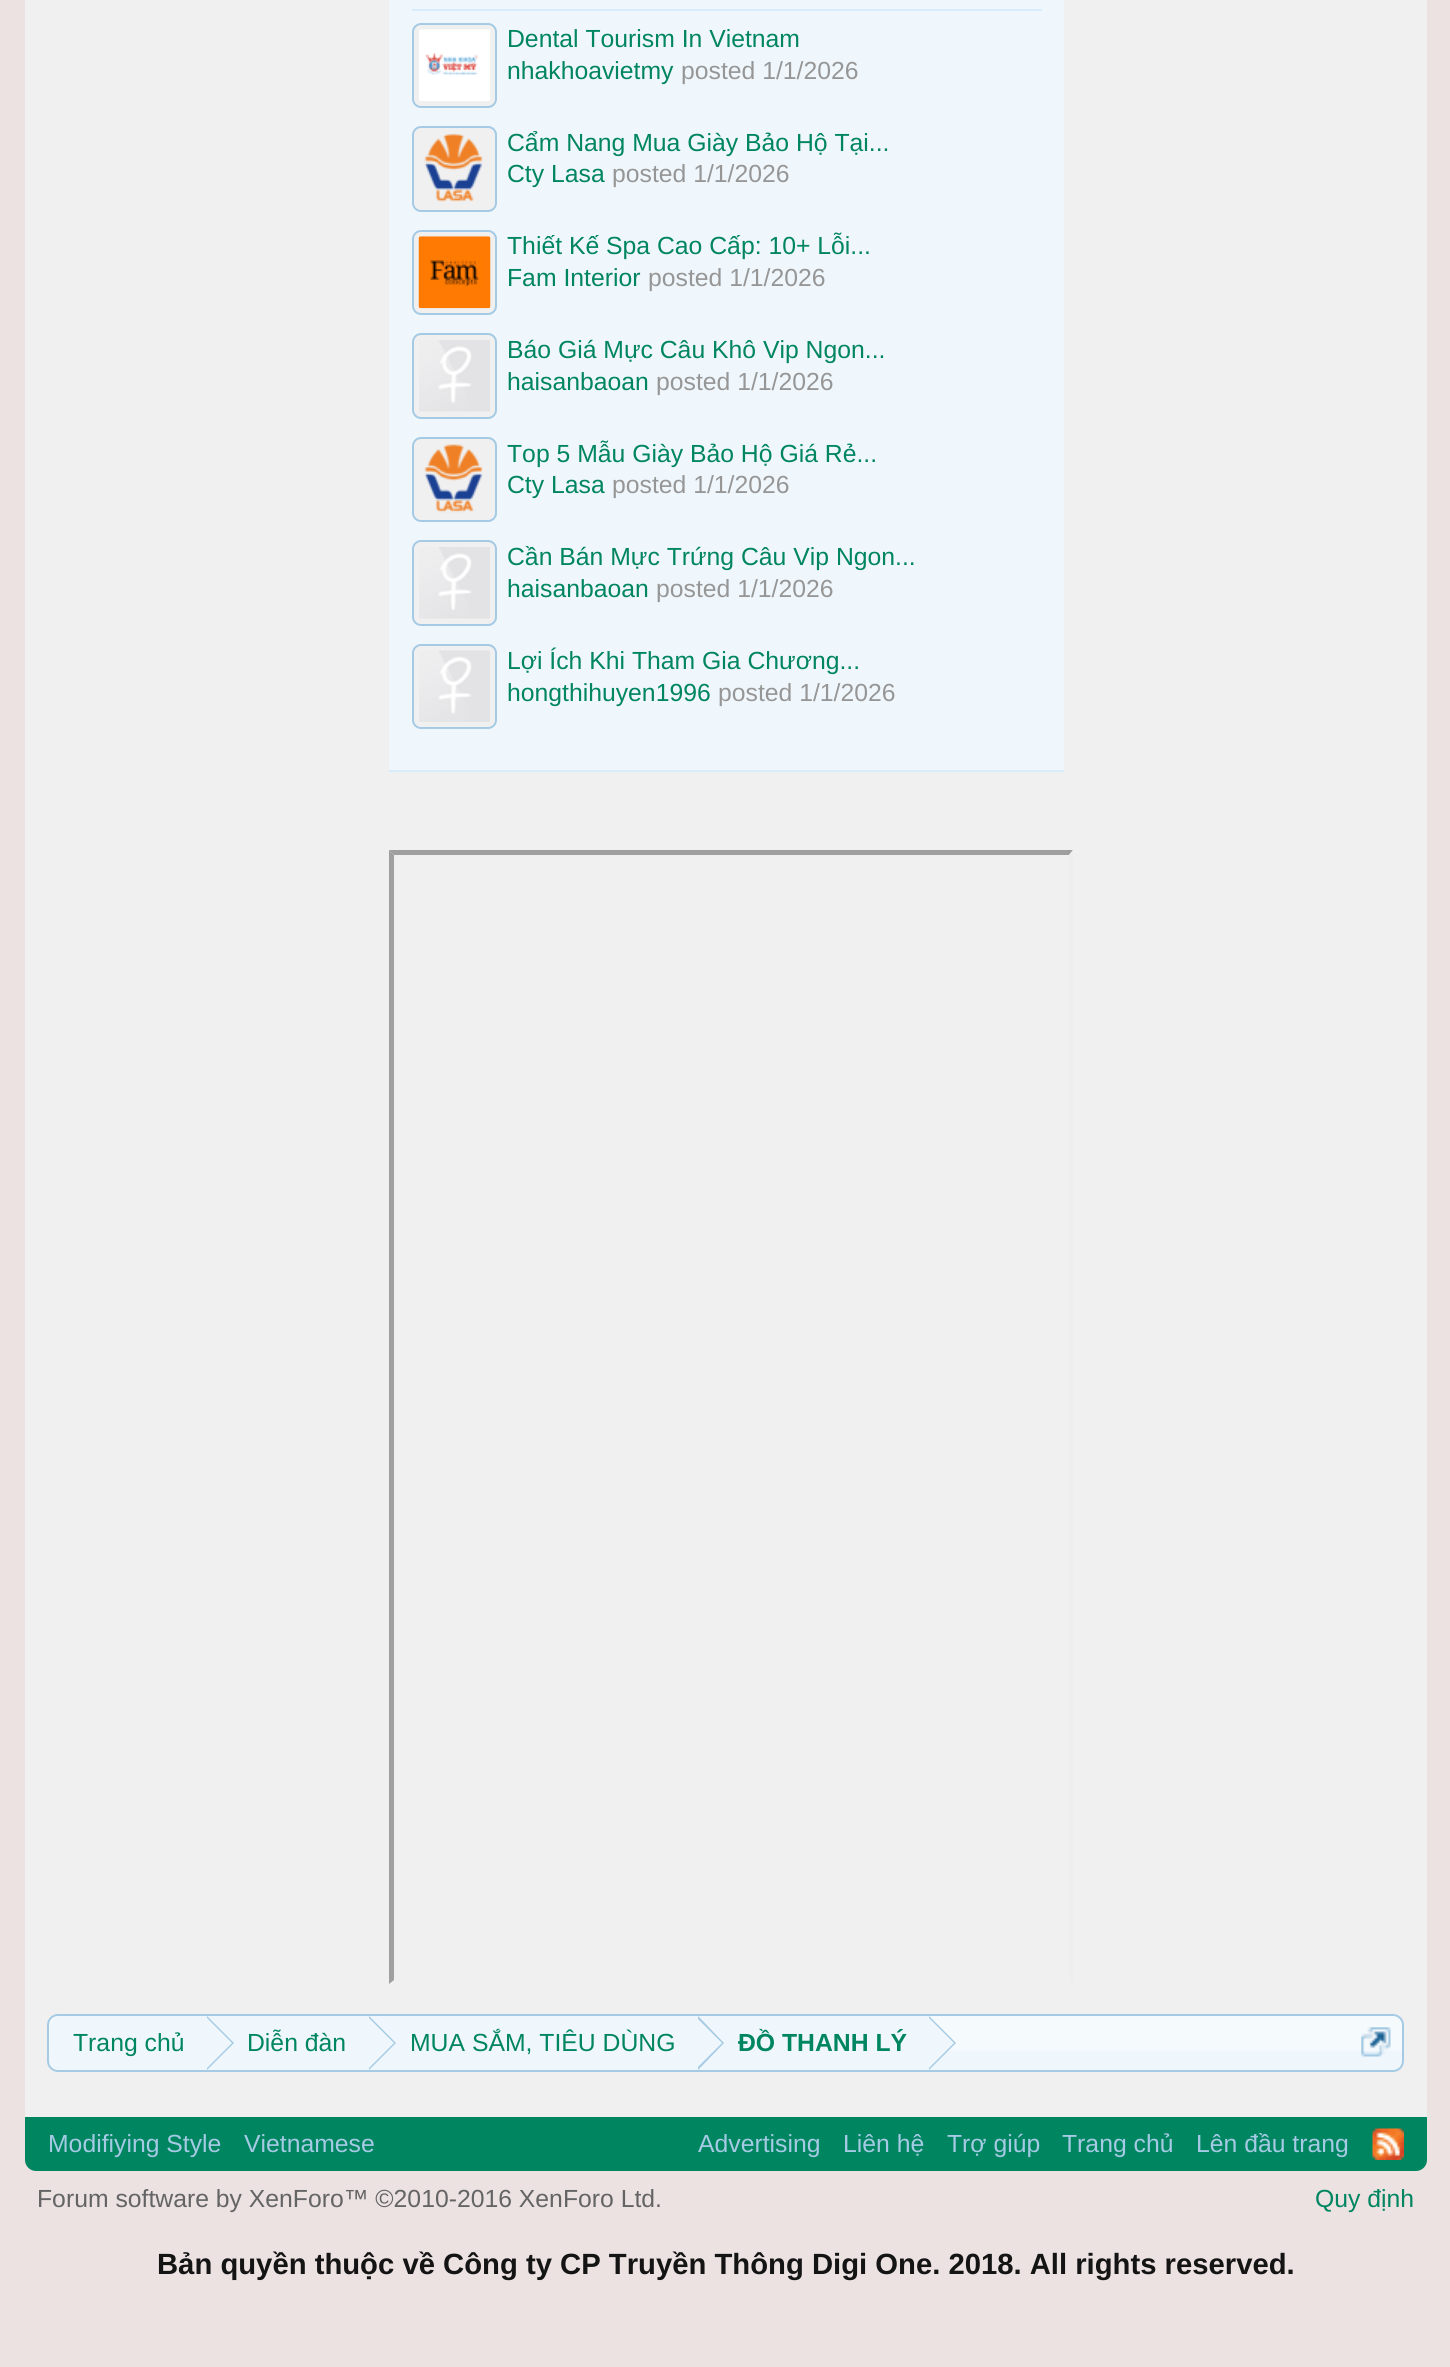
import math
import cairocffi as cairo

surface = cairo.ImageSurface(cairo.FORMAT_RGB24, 1450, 2367)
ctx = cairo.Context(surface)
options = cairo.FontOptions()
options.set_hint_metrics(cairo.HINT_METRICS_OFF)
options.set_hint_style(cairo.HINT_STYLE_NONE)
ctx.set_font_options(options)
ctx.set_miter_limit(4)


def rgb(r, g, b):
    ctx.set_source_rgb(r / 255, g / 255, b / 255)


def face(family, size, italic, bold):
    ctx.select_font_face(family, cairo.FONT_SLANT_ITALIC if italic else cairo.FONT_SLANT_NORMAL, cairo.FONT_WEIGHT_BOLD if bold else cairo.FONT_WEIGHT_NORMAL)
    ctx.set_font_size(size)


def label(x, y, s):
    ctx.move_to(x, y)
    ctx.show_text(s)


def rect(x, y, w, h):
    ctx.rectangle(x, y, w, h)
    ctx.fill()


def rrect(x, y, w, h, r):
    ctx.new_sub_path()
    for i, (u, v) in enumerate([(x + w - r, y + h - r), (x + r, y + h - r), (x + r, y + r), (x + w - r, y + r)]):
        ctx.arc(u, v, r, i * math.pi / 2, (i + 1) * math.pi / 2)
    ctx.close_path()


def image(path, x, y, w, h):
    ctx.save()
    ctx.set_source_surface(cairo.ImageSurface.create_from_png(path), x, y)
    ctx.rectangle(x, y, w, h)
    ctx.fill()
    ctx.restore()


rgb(236, 226, 226)
ctx.paint()
rgb(240, 240, 240)
rect(25, 0, 1402, 2117)
rgb(240, 247, 252)
rect(389, 0, 675, 770)
rgb(215, 237, 252)
rect(389, 770, 675, 2)
rect(412, 9, 630, 2)
rgb(240, 240, 240)
rrect(413, 24, 83, 83, 8)
ctx.fill_preserve()
rgb(165, 202, 228)
ctx.stroke()
image('image0.png', 419, 29, 71, 72)
face('Liberation Sans', 24.75, 0, 0)
rgb(0, 133, 97)
label(507, 47, 'Dental Tourism In Vietnam')
label(507, 79, 'nhakhoavietmy')
rgb(150, 150, 150)
label(681, 79, 'posted 1/1/2026')
rgb(240, 240, 240)
rrect(413, 127, 83, 84, 8)
ctx.fill_preserve()
rgb(165, 202, 228)
ctx.stroke()
image('image1.png', 424, 133, 59, 69)
rgb(0, 133, 97)
label(507, 151, 'Cẩm Nang Mua Giày Bảo Hộ Tại...')
label(507, 182, 'Cty Lasa')
rgb(150, 150, 150)
label(612, 182, 'posted 1/1/2026')
rgb(240, 240, 240)
rrect(413, 231, 83, 83, 8)
ctx.fill_preserve()
rgb(165, 202, 228)
ctx.stroke()
image('image2.png', 418, 236, 73, 73)
rgb(0, 133, 97)
label(507, 254, 'Thiết Kế Spa Cao Cấp: 10+ Lỗi...')
label(507, 286, 'Fam Interior')
rgb(150, 150, 150)
label(648, 286, 'posted 1/1/2026')
rgb(240, 240, 240)
rrect(413, 334, 83, 84, 8)
ctx.fill_preserve()
rgb(165, 202, 228)
ctx.stroke()
image('image3.png', 419, 340, 71, 72)
rgb(0, 133, 97)
label(507, 358, 'Báo Giá Mực Câu Khô Vip Ngon...')
label(507, 390, 'haisanbaoan')
rgb(150, 150, 150)
label(656, 390, 'posted 1/1/2026')
rgb(240, 240, 240)
rrect(413, 438, 83, 83, 8)
ctx.fill_preserve()
rgb(165, 202, 228)
ctx.stroke()
image('image4.png', 424, 444, 59, 69)
rgb(0, 133, 97)
label(507, 462, 'Top 5 Mẫu Giày Bảo Hộ Giá Rẻ...')
label(507, 493, 'Cty Lasa')
rgb(150, 150, 150)
label(612, 493, 'posted 1/1/2026')
rgb(240, 240, 240)
rrect(413, 541, 83, 84, 8)
ctx.fill_preserve()
rgb(165, 202, 228)
ctx.stroke()
image('image3.png', 419, 547, 71, 72)
rgb(0, 133, 97)
label(507, 565, 'Cần Bán Mực Trứng Câu Vip Ngon...')
label(507, 597, 'haisanbaoan')
rgb(150, 150, 150)
label(656, 597, 'posted 1/1/2026')
rgb(240, 240, 240)
rrect(413, 645, 83, 83, 8)
ctx.fill_preserve()
rgb(165, 202, 228)
ctx.stroke()
image('image5.png', 419, 650, 71, 72)
rgb(0, 133, 97)
label(507, 669, 'Lợi Ích Khi Tham Gia Chương...')
label(507, 701, 'hongthihuyen1996')
rgb(150, 150, 150)
label(718, 701, 'posted 1/1/2026')
rgb(159, 159, 159)
ctx.new_path()
ctx.move_to(389, 850)
ctx.line_to(1073, 850)
ctx.line_to(1069, 855)
ctx.line_to(394, 855)
ctx.close_path()
ctx.fill()
ctx.new_path()
ctx.move_to(389, 1984)
ctx.line_to(389, 850)
ctx.line_to(394, 855)
ctx.line_to(394, 1980)
ctx.close_path()
ctx.fill()
rgb(238, 238, 238)
ctx.new_path()
ctx.move_to(1073, 850)
ctx.line_to(1073, 1984)
ctx.line_to(1069, 1980)
ctx.line_to(1069, 855)
ctx.close_path()
ctx.fill()
rgb(240, 247, 252)
rrect(47, 2014, 1357, 58, 11)
ctx.fill()
image('image6.png', 48, 2016, 1356, 35)
rrect(48, 2015, 1355, 56, 10)
rgb(165, 202, 228)
ctx.stroke()
ctx.save()
rrect(50, 2016, 1352, 54, 9)
ctx.clip()
rgb(240, 247, 252)
ctx.new_path()
ctx.move_to(61, 2016)
ctx.line_to(207, 2016)
ctx.line_to(207, 2072)
ctx.line_to(61, 2072)
ctx.curve_to(55, 2072, 50, 2067, 50, 2061)
ctx.line_to(50, 2027)
ctx.curve_to(50, 2021, 55, 2016, 61, 2016)
ctx.close_path()
ctx.fill()
ctx.restore()
rgb(0, 133, 97)
label(73, 2051, 'Trang chủ')
rgb(240, 247, 252)
rect(207, 2016, 722, 35)
rgb(165, 202, 228)
ctx.new_path()
ctx.move_to(207, 2070)
ctx.line_to(207, 2016)
ctx.line_to(234, 2043)
ctx.close_path()
ctx.fill()
rgb(240, 247, 252)
ctx.new_path()
ctx.move_to(205, 2070)
ctx.line_to(205, 2016)
ctx.line_to(232, 2043)
ctx.close_path()
ctx.fill()
rgb(0, 133, 97)
label(247, 2051, 'Diễn đàn')
rgb(165, 202, 228)
ctx.new_path()
ctx.move_to(369, 2070)
ctx.line_to(369, 2016)
ctx.line_to(396, 2043)
ctx.close_path()
ctx.fill()
rgb(240, 247, 252)
ctx.new_path()
ctx.move_to(367, 2070)
ctx.line_to(367, 2016)
ctx.line_to(394, 2043)
ctx.close_path()
ctx.fill()
rgb(0, 133, 97)
label(410, 2051, 'MUA SẮM, TIÊU DÙNG')
rgb(165, 202, 228)
ctx.new_path()
ctx.move_to(698, 2070)
ctx.line_to(698, 2016)
ctx.line_to(724, 2043)
ctx.close_path()
ctx.fill()
rgb(240, 247, 252)
ctx.new_path()
ctx.move_to(695, 2070)
ctx.line_to(695, 2016)
ctx.line_to(722, 2043)
ctx.close_path()
ctx.fill()
face('Liberation Sans', 24.75, 0, 1)
rgb(0, 133, 97)
label(738, 2051, 'ĐỒ THANH LÝ')
rgb(165, 202, 228)
ctx.new_path()
ctx.move_to(929, 2070)
ctx.line_to(929, 2016)
ctx.line_to(956, 2043)
ctx.close_path()
ctx.fill()
rgb(240, 247, 252)
ctx.new_path()
ctx.move_to(927, 2070)
ctx.line_to(927, 2016)
ctx.line_to(954, 2043)
ctx.close_path()
ctx.fill()
image('image7.png', 1361, 2027, 30, 30)
rgb(0, 133, 97)
ctx.new_path()
ctx.move_to(25, 2117)
ctx.line_to(1427, 2117)
ctx.line_to(1427, 2160)
ctx.curve_to(1427, 2166, 1422, 2171, 1416, 2171)
ctx.line_to(36, 2171)
ctx.curve_to(30, 2171, 25, 2166, 25, 2160)
ctx.close_path()
ctx.fill()
face('Liberation Sans', 24.75, 0, 0)
rgb(165, 202, 228)
label(48, 2152, 'Modifiying Style')
label(244, 2152, 'Vietnamese')
label(698, 2152, 'Advertising')
label(843, 2152, 'Liên hệ')
label(947, 2152, 'Trợ giúp')
label(1062, 2152, 'Trang chủ')
label(1196, 2152, 'Lên đầu trang')
image('image8.png', 1372, 2128, 32, 32)
rgb(100, 100, 100)
label(37, 2207, 'Forum software by XenForo™ ©2010-2016 XenForo Ltd.')
rgb(0, 133, 97)
label(1315, 2207, 'Quy định')
face('Liberation Sans', 29.25, 0, 1)
rgb(20, 20, 20)
label(157, 2274, 'Bản quyền thuộc về Công ty CP Truyền Thông Digi One. 2018. All rights reserved.')
surface.write_to_png('render.png')
